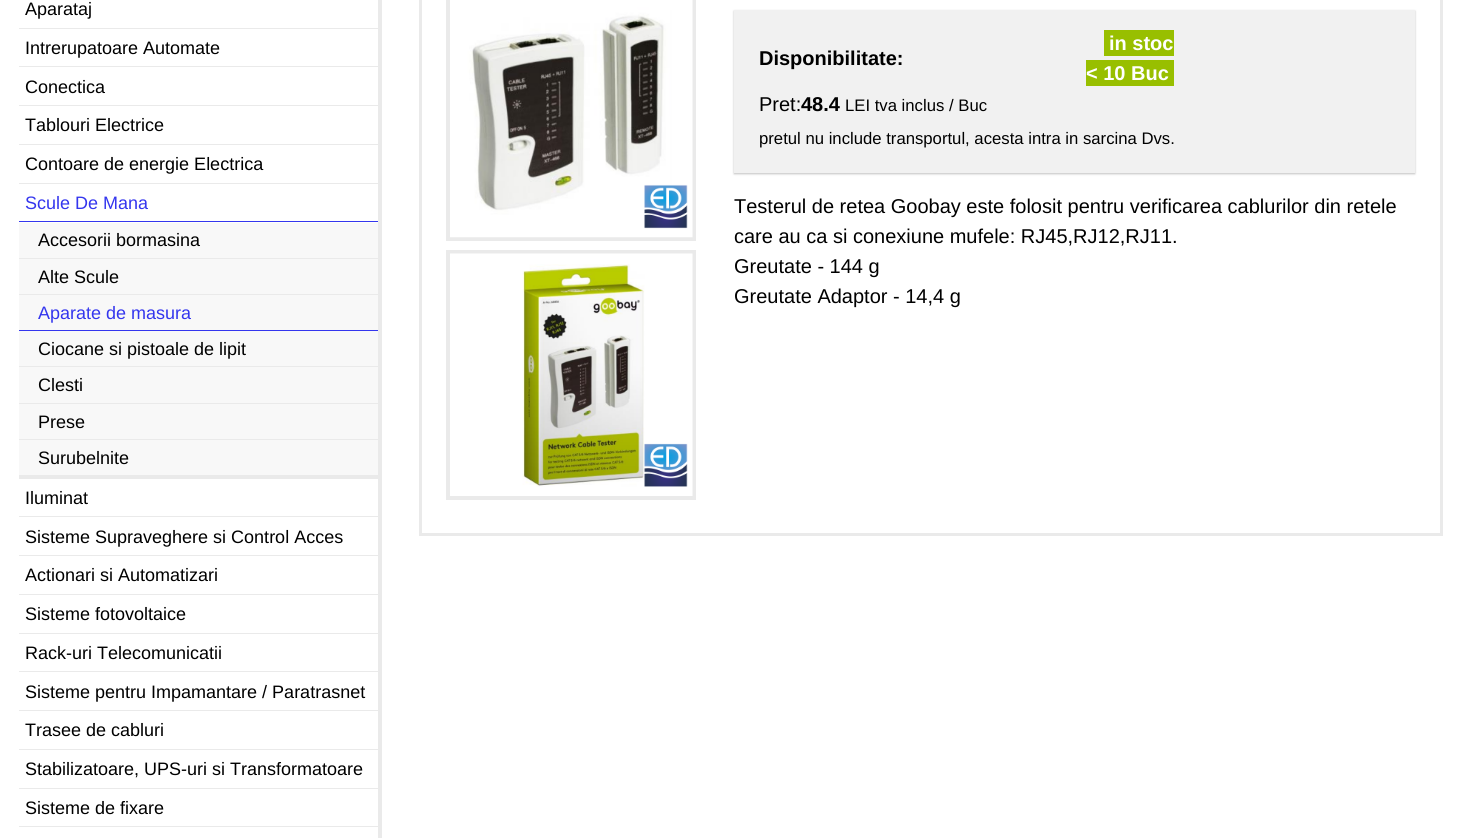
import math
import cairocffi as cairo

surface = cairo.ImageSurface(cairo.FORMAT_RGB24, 1461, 838)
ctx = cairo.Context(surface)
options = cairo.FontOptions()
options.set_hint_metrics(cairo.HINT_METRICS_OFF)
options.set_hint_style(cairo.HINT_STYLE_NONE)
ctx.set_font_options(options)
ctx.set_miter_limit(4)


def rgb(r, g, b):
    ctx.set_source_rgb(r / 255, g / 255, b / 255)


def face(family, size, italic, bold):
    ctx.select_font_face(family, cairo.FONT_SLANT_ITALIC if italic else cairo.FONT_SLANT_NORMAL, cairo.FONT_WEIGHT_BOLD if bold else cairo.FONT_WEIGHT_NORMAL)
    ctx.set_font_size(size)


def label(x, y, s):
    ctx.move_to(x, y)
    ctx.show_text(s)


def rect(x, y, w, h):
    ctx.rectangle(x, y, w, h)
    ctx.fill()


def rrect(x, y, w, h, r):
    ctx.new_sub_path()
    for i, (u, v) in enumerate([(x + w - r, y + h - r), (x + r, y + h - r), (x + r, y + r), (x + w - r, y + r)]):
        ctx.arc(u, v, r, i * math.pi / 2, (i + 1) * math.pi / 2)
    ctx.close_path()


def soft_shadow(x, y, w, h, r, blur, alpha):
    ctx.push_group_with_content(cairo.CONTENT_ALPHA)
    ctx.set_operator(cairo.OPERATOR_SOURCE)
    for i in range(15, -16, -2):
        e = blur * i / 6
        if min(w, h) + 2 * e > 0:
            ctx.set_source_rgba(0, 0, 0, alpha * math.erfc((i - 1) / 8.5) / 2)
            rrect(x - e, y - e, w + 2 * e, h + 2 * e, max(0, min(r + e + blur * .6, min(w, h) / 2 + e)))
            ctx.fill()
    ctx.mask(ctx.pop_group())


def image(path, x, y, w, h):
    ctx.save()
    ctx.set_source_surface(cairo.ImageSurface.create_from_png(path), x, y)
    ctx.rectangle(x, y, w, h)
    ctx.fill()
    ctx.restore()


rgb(255, 255, 255)
ctx.paint()
rgb(234, 234, 234)
rect(378, 0, 4, 838)
rect(19, 28, 359, 1)
face('Liberation Sans', 18, 0, 0)
rgb(0, 0, 0)
label(25, 15, 'Aparataj')
rgb(234, 234, 234)
rect(19, 66, 359, 1)
rgb(0, 0, 0)
label(25, 54, 'Intrerupatoare Automate')
rgb(234, 234, 234)
rect(19, 105, 359, 1)
rgb(0, 0, 0)
label(25, 93, 'Conectica')
rgb(234, 234, 234)
rect(19, 144, 359, 1)
rgb(0, 0, 0)
label(25, 131, 'Tablouri Electrice')
rgb(234, 234, 234)
rect(19, 183, 359, 1)
rgb(0, 0, 0)
label(25, 170, 'Contoare de energie Electrica')
rgb(52, 54, 238)
rect(19, 221, 359, 1)
label(25, 209, 'Scule De Mana')
rgb(234, 234, 234)
rect(19, 475, 359, 4)
rgb(248, 248, 248)
rect(19, 223, 359, 35)
rgb(234, 234, 234)
rect(19, 258, 359, 1)
rgb(0, 0, 0)
label(38, 246, 'Accesorii bormasina')
rgb(248, 248, 248)
rect(19, 259, 359, 35)
rgb(234, 234, 234)
rect(19, 294, 359, 1)
rgb(0, 0, 0)
label(38, 283, 'Alte Scule')
rgb(248, 248, 248)
rect(19, 295, 359, 35)
rgb(52, 54, 238)
rect(19, 330, 359, 1)
label(38, 319, 'Aparate de masura')
rgb(248, 248, 248)
rect(19, 331, 359, 72)
rgb(234, 234, 234)
rect(19, 366, 359, 1)
rgb(0, 0, 0)
label(38, 355, 'Ciocane si pistoale de lipit')
rgb(234, 234, 234)
rect(19, 403, 359, 1)
rgb(0, 0, 0)
label(38, 391, 'Clesti')
rgb(248, 248, 248)
rect(19, 404, 359, 35)
rgb(234, 234, 234)
rect(19, 439, 359, 1)
rgb(0, 0, 0)
label(38, 428, 'Prese')
rgb(248, 248, 248)
rect(19, 440, 359, 35)
rgb(0, 0, 0)
label(38, 464, 'Surubelnite')
rgb(234, 234, 234)
rect(19, 516, 359, 1)
rgb(0, 0, 0)
label(25, 504, 'Iluminat')
rgb(234, 234, 234)
rect(19, 555, 359, 1)
rgb(0, 0, 0)
label(25, 543, 'Sisteme Supraveghere si Control Acces')
rgb(234, 234, 234)
rect(19, 594, 359, 1)
rgb(0, 0, 0)
label(25, 581, 'Actionari si Automatizari')
rgb(234, 234, 234)
rect(19, 633, 359, 1)
rgb(0, 0, 0)
label(25, 620, 'Sisteme fotovoltaice')
rgb(234, 234, 234)
rect(19, 671, 359, 1)
rgb(0, 0, 0)
label(25, 659, 'Rack-uri Telecomunicatii')
rgb(234, 234, 234)
rect(19, 710, 359, 1)
rgb(0, 0, 0)
label(25, 698, 'Sisteme pentru Impamantare / Paratrasnet')
rgb(234, 234, 234)
rect(19, 749, 359, 1)
rgb(0, 0, 0)
label(25, 736, 'Trasee de cabluri')
rgb(234, 234, 234)
rect(19, 788, 359, 1)
rgb(0, 0, 0)
label(25, 775, 'Stabilizatoare, UPS-uri si Transformatoare')
rgb(234, 234, 234)
rect(19, 826, 359, 1)
rgb(0, 0, 0)
label(25, 814, 'Sisteme de fixare')
ctx.rectangle(420.5, -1.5, 1021, 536)
rgb(234, 234, 234)
ctx.set_line_width(3)
ctx.stroke()
ctx.rectangle(448, -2, 246, 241)
ctx.set_line_width(4)
ctx.stroke()
image('image0.png', 450, 0, 243, 238)
ctx.rectangle(448, 252, 246, 246)
ctx.stroke()
image('image1.png', 450, 253, 243, 243)
rgb(99, 99, 99)
soft_shadow(734, 11, 681, 163, 0, 1, 0.4)
rgb(241, 241, 241)
rect(734, 10, 681, 163)
face('Liberation Sans', 20, 0, 1)
rgb(0, 0, 0)
label(759, 65, 'Disponibilitate:')
rgb(152, 191, 0)
rect(1104, 30, 70, 26)
rgb(255, 255, 255)
label(1109, 50, 'in stoc')
rgb(152, 191, 0)
rect(1086, 60, 88, 26)
rgb(255, 255, 255)
label(1086, 80, '< 10 Buc')
face('Liberation Sans', 20, 0, 0)
rgb(0, 0, 0)
label(759, 111, 'Pret:')
face('Liberation Sans', 20, 0, 1)
label(801, 111, '48.4')
face('Liberation Sans', 16.7, 0, 0)
label(845, 111, 'LEI tva inclus / Buc')
label(759, 144, 'pretul nu include transportul, acesta intra in sarcina Dvs.')
face('Liberation Sans', 20, 0, 0)
label(734, 213, 'Testerul de retea Goobay este folosit pentru verificarea cablurilor din retele')
label(734, 243, 'care au ca si conexiune mufele: RJ45,RJ12,RJ11.')
label(734, 273, 'Greutate - 144 g')
label(734, 303, 'Greutate Adaptor - 14,4 g')
surface.write_to_png('render.png')
